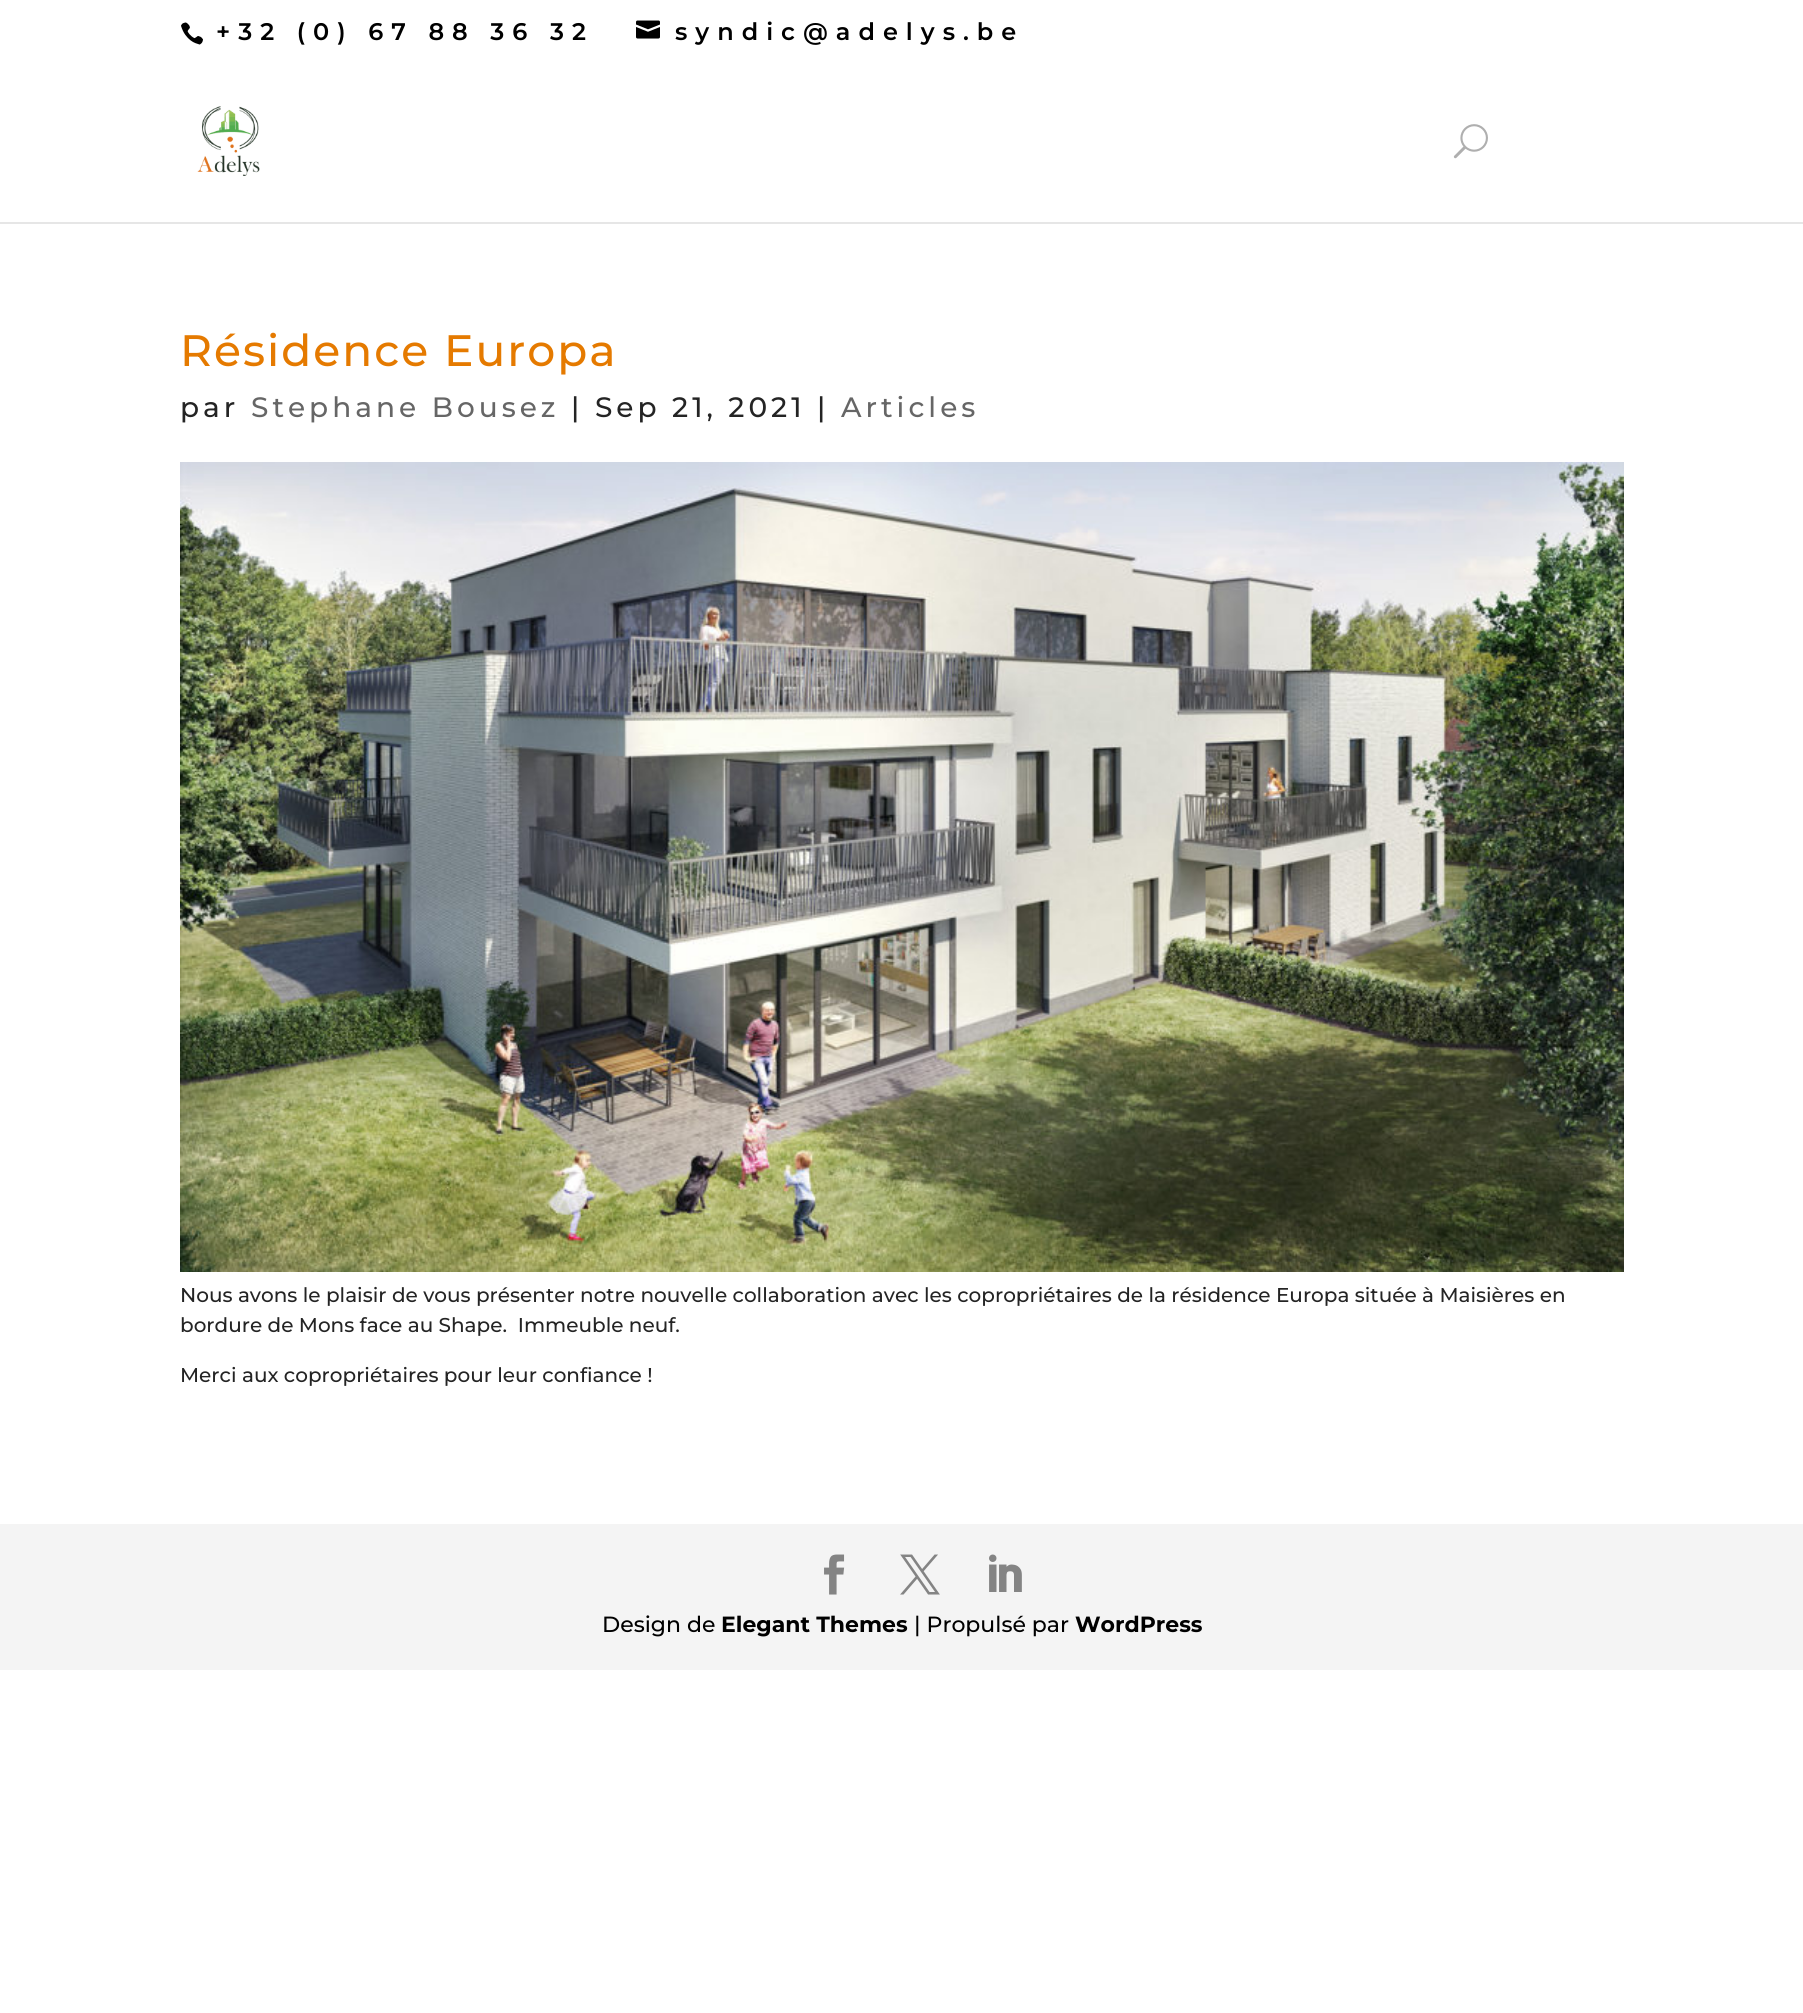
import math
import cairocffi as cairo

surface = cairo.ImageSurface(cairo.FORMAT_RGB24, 1803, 2013)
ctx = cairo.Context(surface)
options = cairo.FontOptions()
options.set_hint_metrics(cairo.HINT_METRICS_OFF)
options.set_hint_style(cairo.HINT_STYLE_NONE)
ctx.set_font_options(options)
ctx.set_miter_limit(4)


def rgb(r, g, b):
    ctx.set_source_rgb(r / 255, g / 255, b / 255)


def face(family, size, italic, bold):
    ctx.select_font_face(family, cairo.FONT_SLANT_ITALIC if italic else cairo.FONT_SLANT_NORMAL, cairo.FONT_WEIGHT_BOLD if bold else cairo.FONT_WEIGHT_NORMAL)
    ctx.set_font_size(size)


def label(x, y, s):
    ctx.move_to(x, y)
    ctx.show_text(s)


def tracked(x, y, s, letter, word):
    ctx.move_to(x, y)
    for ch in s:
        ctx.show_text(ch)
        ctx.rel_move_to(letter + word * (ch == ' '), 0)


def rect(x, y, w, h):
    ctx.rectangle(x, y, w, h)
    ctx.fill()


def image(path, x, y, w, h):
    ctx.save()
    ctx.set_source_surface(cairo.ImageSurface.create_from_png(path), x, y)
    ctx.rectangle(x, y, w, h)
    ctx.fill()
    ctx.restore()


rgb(255, 255, 255)
ctx.paint()
image('image0.png', 181, 22, 22, 23)
face('Montserrat SemiBold', 24, 0, 0)
rgb(0, 0, 0)
tracked(216, 40, '+32 (0) 67 88 36 32', 8, 0)
image('image1.png', 636, 20, 24, 19)
tracked(675, 40, 'syndic@adelys.be', 8, 0)
rgb(230, 230, 230)
rect(0, 222, 1803, 2)
image('image2.png', 197, 106, 63, 70)
image('image3.png', 1453, 124, 35, 35)
face('Montserrat Medium', 44, 0, 0)
rgb(229, 122, 0)
tracked(180, 366, 'Résidence Europa', 2, 0)
face('Montserrat Medium', 28, 0, 0)
rgb(36, 36, 36)
tracked(180, 417, 'par', 4, 0)
rgb(102, 102, 102)
tracked(251, 417, 'Stephane Bousez', 4, 0)
rgb(36, 36, 36)
tracked(571, 417, '| Sep 21, 2021 |', 4, 0)
rgb(102, 102, 102)
tracked(841, 417, 'Articles', 4, 0)
image('image4.png', 180, 462, 1444, 810)
face('Montserrat Medium', 20, 0, 0)
rgb(36, 36, 36)
label(180, 1302, 'Nous avons le plaisir de vous présenter notre nouvelle collaboration avec les copropriétaires de la résidence Europa située à Maisières en')
label(180, 1332, 'bordure de Mons face au Shape.  Immeuble neuf.')
label(180, 1382, 'Merci aux copropriétaires pour leur confiance !')
rgb(244, 244, 244)
rect(0, 1524, 1803, 146)
image('image5.png', 824, 1554, 21, 41)
image('image6.png', 900, 1554, 40, 41)
image('image7.png', 989, 1554, 33, 38)
face('Montserrat Medium', 22, 0, 0)
rgb(0, 0, 0)
label(602, 1632, 'Design de')
face('Montserrat', 22, 0, 1)
label(721, 1632, 'Elegant Themes')
face('Montserrat Medium', 22, 0, 0)
label(914, 1632, '| Propulsé par')
face('Montserrat', 22, 0, 1)
label(1075, 1632, 'WordPress')
surface.write_to_png('render.png')
